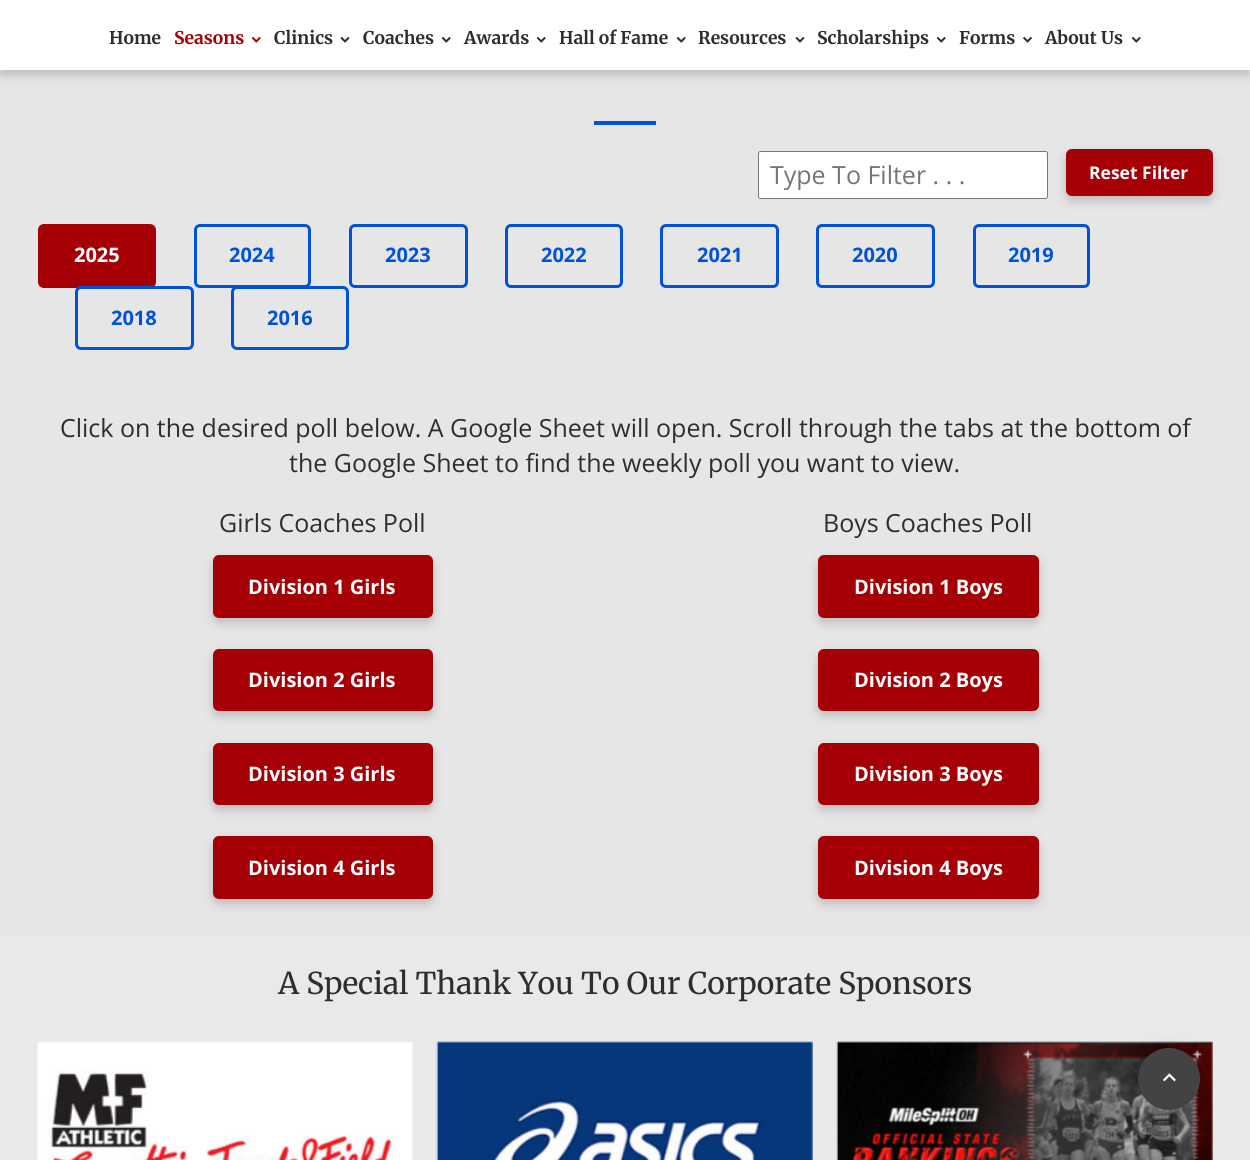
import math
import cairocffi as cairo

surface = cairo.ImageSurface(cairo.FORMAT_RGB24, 1250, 1160)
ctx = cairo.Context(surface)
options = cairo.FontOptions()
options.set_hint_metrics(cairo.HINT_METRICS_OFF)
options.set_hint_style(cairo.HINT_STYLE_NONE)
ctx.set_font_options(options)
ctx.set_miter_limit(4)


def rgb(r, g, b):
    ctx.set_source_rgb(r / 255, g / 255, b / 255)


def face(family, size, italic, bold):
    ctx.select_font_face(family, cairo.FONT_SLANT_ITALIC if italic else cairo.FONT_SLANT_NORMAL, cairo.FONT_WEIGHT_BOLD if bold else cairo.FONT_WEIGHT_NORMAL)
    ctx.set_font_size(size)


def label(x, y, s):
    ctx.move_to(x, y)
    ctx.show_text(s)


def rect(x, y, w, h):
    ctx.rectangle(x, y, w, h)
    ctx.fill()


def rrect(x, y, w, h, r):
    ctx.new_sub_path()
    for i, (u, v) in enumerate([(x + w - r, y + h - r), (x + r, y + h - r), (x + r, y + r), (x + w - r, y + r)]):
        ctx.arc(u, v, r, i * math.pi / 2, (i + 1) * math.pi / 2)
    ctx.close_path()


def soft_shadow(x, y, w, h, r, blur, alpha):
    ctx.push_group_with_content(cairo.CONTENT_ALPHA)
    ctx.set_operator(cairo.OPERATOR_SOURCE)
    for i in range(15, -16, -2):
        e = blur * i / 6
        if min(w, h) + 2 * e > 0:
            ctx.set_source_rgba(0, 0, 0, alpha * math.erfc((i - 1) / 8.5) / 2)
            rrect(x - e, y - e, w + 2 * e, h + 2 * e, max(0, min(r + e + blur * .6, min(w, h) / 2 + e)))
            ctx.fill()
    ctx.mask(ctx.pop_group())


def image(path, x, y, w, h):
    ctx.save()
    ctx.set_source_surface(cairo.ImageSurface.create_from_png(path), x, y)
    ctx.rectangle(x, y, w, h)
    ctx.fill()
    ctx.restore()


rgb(230, 230, 230)
ctx.paint()
rgb(0, 0, 0)
soft_shadow(0, 5, 1250, 70, 0, 5, 0.18)
rgb(255, 255, 255)
rect(0, 0, 1250, 70)
face('Merriweather', 17.5, 0, 1)
rgb(45, 46, 46)
label(109, 44, 'Home')
rgb(166, 0, 7)
label(174, 44, 'Seasons')
image('image0.png', 251, 37, 10, 6)
rgb(45, 46, 46)
label(274, 44, 'Clinics')
image('image1.png', 340, 37, 10, 6)
label(363, 44, 'Coaches')
image('image2.png', 441, 37, 10, 6)
label(464, 44, 'Awards')
image('image2.png', 536, 37, 10, 6)
label(559, 44, 'Hall of Fame')
image('image2.png', 676, 37, 10, 6)
label(698, 44, 'Resources')
image('image1.png', 795, 37, 10, 6)
label(817, 44, 'Scholarships')
image('image2.png', 936, 37, 10, 6)
label(959, 44, 'Forms')
image('image3.png', 1023, 37, 9, 6)
label(1045, 44, 'About Us')
image('image2.png', 1131, 37, 10, 6)
rgb(0, 83, 216)
rect(594, 121, 62, 4)
rgb(255, 255, 255)
rrect(758.5, 151.5, 289, 47, 2)
ctx.fill_preserve()
rgb(118, 118, 118)
ctx.set_line_width(1)
ctx.stroke()
face('Open Sans', 25, 0, 0)
rgb(117, 117, 117)
label(770, 184, 'Type To Filter . . .')
rgb(0, 0, 0)
soft_shadow(1066, 154, 147, 47, 6, 5, 0.18)
rgb(166, 0, 7)
rrect(1067.5, 150.5, 144, 44, 4.5)
ctx.fill_preserve()
ctx.set_line_width(3)
ctx.stroke()
face('Open Sans', 17.5, 0, 1)
rgb(255, 255, 255)
label(1089, 179, 'Reset Filter')
rgb(166, 0, 7)
rrect(39.5, 225.5, 115, 61, 4.5)
ctx.fill_preserve()
ctx.stroke()
face('Open Sans', 20, 0, 1)
rgb(255, 255, 255)
label(74, 262, '2025')
rrect(195.5, 225.5, 114, 61, 4.5)
rgb(0, 83, 216)
ctx.stroke()
label(229, 262, '2024')
rrect(350.5, 225.5, 116, 61, 4.5)
ctx.stroke()
label(385, 262, '2023')
rrect(506.5, 225.5, 115, 61, 4.5)
ctx.stroke()
label(541, 262, '2022')
rrect(661.5, 225.5, 116, 61, 4.5)
ctx.stroke()
label(697, 262, '2021')
rrect(817.5, 225.5, 116, 61, 4.5)
ctx.stroke()
label(852, 262, '2020')
rrect(974.5, 225.5, 114, 61, 4.5)
ctx.stroke()
label(1008, 262, '2019')
rrect(76.5, 287.5, 116, 61, 4.5)
ctx.stroke()
label(111, 325, '2018')
rrect(232.5, 287.5, 115, 61, 4.5)
ctx.stroke()
label(267, 325, '2016')
face('Open Sans', 25, 0, 0)
rgb(45, 46, 46)
label(60, 437, 'Click on the desired poll below. A Google Sheet will open. Scroll through the tabs at the bottom of')
label(289, 472, 'the Google Sheet to find the weekly poll you want to view.')
label(219, 532, 'Girls Coaches Poll')
rgb(0, 0, 0)
soft_shadow(213, 560, 220, 63, 6, 5, 0.18)
rgb(166, 0, 7)
rrect(214.5, 556.5, 217, 60, 4.5)
ctx.fill_preserve()
ctx.stroke()
face('Open Sans', 20, 0, 1)
rgb(255, 255, 255)
label(248, 594, 'Division 1 Girls')
rgb(0, 0, 0)
soft_shadow(213, 654, 220, 62, 6, 5, 0.18)
rgb(166, 0, 7)
rrect(214.5, 650.5, 217, 59, 4.5)
ctx.fill_preserve()
ctx.stroke()
rgb(255, 255, 255)
label(248, 687, 'Division 2 Girls')
rgb(0, 0, 0)
soft_shadow(213, 748, 220, 62, 6, 5, 0.18)
rgb(166, 0, 7)
rrect(214.5, 744.5, 217, 59, 4.5)
ctx.fill_preserve()
ctx.stroke()
rgb(255, 255, 255)
label(248, 781, 'Division 3 Girls')
rgb(0, 0, 0)
soft_shadow(213, 841, 220, 63, 6, 5, 0.18)
rgb(166, 0, 7)
rrect(214.5, 837.5, 217, 60, 4.5)
ctx.fill_preserve()
ctx.stroke()
rgb(255, 255, 255)
label(248, 875, 'Division 4 Girls')
face('Open Sans', 25, 0, 0)
rgb(45, 46, 46)
label(823, 532, 'Boys Coaches Poll')
rgb(0, 0, 0)
soft_shadow(818, 560, 221, 63, 6, 5, 0.18)
rgb(166, 0, 7)
rrect(819.5, 556.5, 218, 60, 4.5)
ctx.fill_preserve()
ctx.stroke()
face('Open Sans', 20, 0, 1)
rgb(255, 255, 255)
label(854, 594, 'Division 1 Boys')
rgb(0, 0, 0)
soft_shadow(818, 654, 221, 62, 6, 5, 0.18)
rgb(166, 0, 7)
rrect(819.5, 650.5, 218, 59, 4.5)
ctx.fill_preserve()
ctx.stroke()
rgb(255, 255, 255)
label(854, 687, 'Division 2 Boys')
rgb(0, 0, 0)
soft_shadow(818, 748, 221, 62, 6, 5, 0.18)
rgb(166, 0, 7)
rrect(819.5, 744.5, 218, 59, 4.5)
ctx.fill_preserve()
ctx.stroke()
rgb(255, 255, 255)
label(854, 781, 'Division 3 Boys')
rgb(0, 0, 0)
soft_shadow(818, 841, 221, 63, 6, 5, 0.18)
rgb(166, 0, 7)
rrect(819.5, 837.5, 218, 60, 4.5)
ctx.fill_preserve()
ctx.stroke()
rgb(255, 255, 255)
label(854, 875, 'Division 4 Boys')
rgb(233, 233, 233)
rect(0, 936, 1250, 224)
face('Merriweather', 30, 0, 0)
rgb(45, 46, 46)
label(278, 994, 'A Special Thank You To Our Corporate Sponsors')
image('image4.png', 37, 1041, 376, 119)
image('image5.png', 436, 1041, 377, 119)
image('image6.png', 836, 1041, 377, 119)
rgb(0, 0, 0)
soft_shadow(1138, 1048, 62, 62, 31, 6, 0.22)
rgb(67, 67, 69)
ctx.arc(1169, 1079, 31, 0, 2 * math.pi)
ctx.fill()
image('image7.png', 1162, 1073, 14, 9)
surface.write_to_png('render.png')
